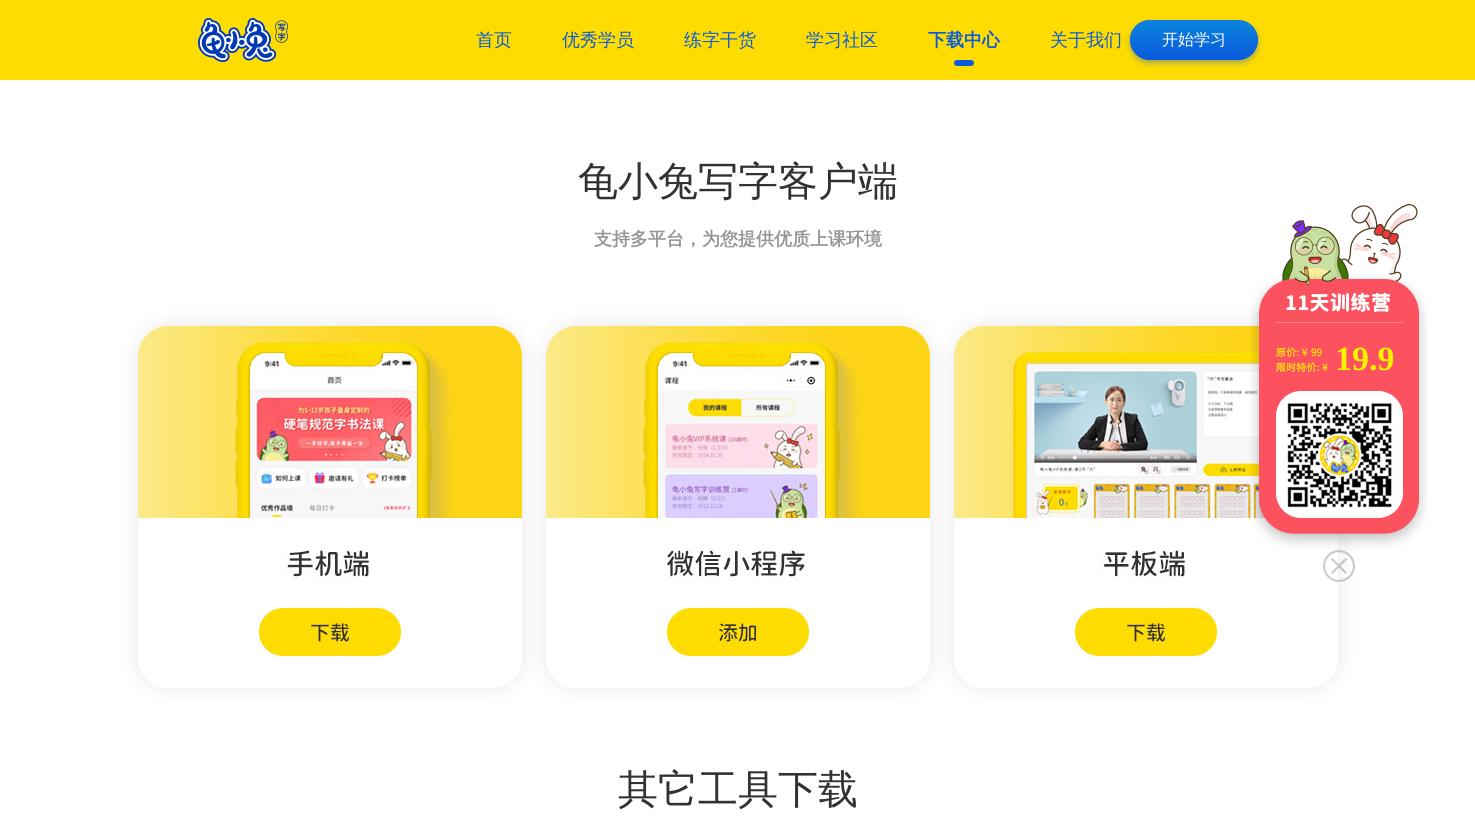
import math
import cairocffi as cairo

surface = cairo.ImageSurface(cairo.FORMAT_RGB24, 1475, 833)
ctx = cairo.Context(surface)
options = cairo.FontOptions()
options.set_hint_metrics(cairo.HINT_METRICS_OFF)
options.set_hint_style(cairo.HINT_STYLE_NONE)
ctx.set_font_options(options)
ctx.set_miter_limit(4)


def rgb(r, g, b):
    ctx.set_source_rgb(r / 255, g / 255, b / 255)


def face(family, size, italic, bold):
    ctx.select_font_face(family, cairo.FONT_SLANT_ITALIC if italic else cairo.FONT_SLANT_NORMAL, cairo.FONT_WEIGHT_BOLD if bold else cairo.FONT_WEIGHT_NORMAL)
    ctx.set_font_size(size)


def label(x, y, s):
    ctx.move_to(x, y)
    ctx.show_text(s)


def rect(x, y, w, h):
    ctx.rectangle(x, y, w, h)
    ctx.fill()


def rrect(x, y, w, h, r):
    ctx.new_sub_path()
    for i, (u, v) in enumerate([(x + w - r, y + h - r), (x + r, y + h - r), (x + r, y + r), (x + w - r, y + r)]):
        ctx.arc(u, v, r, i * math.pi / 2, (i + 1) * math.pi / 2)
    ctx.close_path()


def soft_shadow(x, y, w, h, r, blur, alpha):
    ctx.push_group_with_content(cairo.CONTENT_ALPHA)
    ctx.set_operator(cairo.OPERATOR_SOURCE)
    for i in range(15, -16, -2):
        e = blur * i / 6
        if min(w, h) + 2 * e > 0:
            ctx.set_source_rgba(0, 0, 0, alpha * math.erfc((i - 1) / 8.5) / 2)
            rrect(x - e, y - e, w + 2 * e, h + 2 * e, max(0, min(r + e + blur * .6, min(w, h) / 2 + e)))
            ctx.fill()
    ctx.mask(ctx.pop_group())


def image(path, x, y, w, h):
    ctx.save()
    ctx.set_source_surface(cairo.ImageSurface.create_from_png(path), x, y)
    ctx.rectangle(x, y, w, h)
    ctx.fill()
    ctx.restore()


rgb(255, 255, 255)
ctx.paint()
rgb(255, 220, 0)
rect(0, 0, 1475, 80)
image('image0.png', 198, 18, 90, 44)
face('WenQuanYi Zen Hei Medium', 18, 0, 0)
rgb(10, 90, 220)
label(476, 46, '首页')
label(562, 46, '优秀学员')
label(684, 46, '练字干货')
label(806, 46, '学习社区')
face('WenQuanYi Zen Hei', 18, 0, 1)
label(928, 46, '下载中心')
rrect(954, 60, 20, 6, 3)
ctx.fill()
face('WenQuanYi Zen Hei Medium', 18, 0, 0)
label(1050, 46, '关于我们')
rgb(10, 90, 220)
soft_shadow(1130, 23, 128, 40, 20, 3, 0.4)
rgb(10, 90, 220)
rrect(1130, 20, 128, 40, 20)
ctx.fill()
image('image1.png', 1130, 20, 128, 40)
face('WenQuanYi Zen Hei Medium', 16, 0, 0)
rgb(255, 255, 255)
label(1162, 45, '开始学习')
face('WenQuanYi Zen Hei Medium', 40, 0, 0)
rgb(50, 50, 50)
label(578, 195, '龟小兔写字客户端')
face('WenQuanYi Zen Hei', 18, 0, 1)
rgb(150, 150, 150)
label(594, 245, '支持多平台，为您提供优质上课环境')
ctx.save()
ctx.set_fill_rule(cairo.FILL_RULE_EVEN_ODD)
ctx.new_path()
ctx.move_to(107, 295)
ctx.line_to(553, 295)
ctx.line_to(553, 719)
ctx.line_to(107, 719)
ctx.close_path()
ctx.move_to(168, 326)
ctx.line_to(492, 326)
ctx.curve_to(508.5, 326, 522, 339.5, 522, 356)
ctx.line_to(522, 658)
ctx.curve_to(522, 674.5, 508.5, 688, 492, 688)
ctx.line_to(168, 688)
ctx.curve_to(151.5, 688, 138, 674.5, 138, 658)
ctx.line_to(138, 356)
ctx.curve_to(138, 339.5, 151.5, 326, 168, 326)
ctx.close_path()
ctx.clip()
rgb(0, 0, 0)
soft_shadow(138, 326, 384, 362, 30, 10, 0.1)
ctx.restore()
image('image2.png', 138, 326, 384, 336)
ctx.save()
ctx.set_fill_rule(cairo.FILL_RULE_EVEN_ODD)
ctx.new_path()
ctx.move_to(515, 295)
ctx.line_to(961, 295)
ctx.line_to(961, 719)
ctx.line_to(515, 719)
ctx.close_path()
ctx.move_to(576, 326)
ctx.line_to(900, 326)
ctx.curve_to(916.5, 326, 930, 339.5, 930, 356)
ctx.line_to(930, 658)
ctx.curve_to(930, 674.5, 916.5, 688, 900, 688)
ctx.line_to(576, 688)
ctx.curve_to(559.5, 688, 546, 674.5, 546, 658)
ctx.line_to(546, 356)
ctx.curve_to(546, 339.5, 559.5, 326, 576, 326)
ctx.close_path()
ctx.clip()
rgb(0, 0, 0)
soft_shadow(546, 326, 384, 362, 30, 10, 0.1)
ctx.restore()
image('image3.png', 546, 326, 384, 336)
ctx.save()
ctx.set_fill_rule(cairo.FILL_RULE_EVEN_ODD)
ctx.new_path()
ctx.move_to(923, 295)
ctx.line_to(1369, 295)
ctx.line_to(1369, 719)
ctx.line_to(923, 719)
ctx.close_path()
ctx.move_to(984, 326)
ctx.line_to(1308, 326)
ctx.curve_to(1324.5, 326, 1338, 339.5, 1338, 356)
ctx.line_to(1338, 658)
ctx.curve_to(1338, 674.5, 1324.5, 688, 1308, 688)
ctx.line_to(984, 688)
ctx.curve_to(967.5, 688, 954, 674.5, 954, 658)
ctx.line_to(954, 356)
ctx.curve_to(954, 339.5, 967.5, 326, 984, 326)
ctx.close_path()
ctx.clip()
rgb(0, 0, 0)
soft_shadow(954, 326, 384, 362, 30, 10, 0.1)
ctx.restore()
image('image4.png', 954, 326, 384, 336)
face('WenQuanYi Zen Hei Medium', 40, 0, 0)
rgb(50, 50, 50)
label(618, 803, '其它工具下载')
image('image5.png', 1250, 204, 178, 378)
face('Liberation Serif', 34, 0, 1)
rgb(255, 240, 0)
label(1335, 370, '19.9')
surface.write_to_png('render.png')
